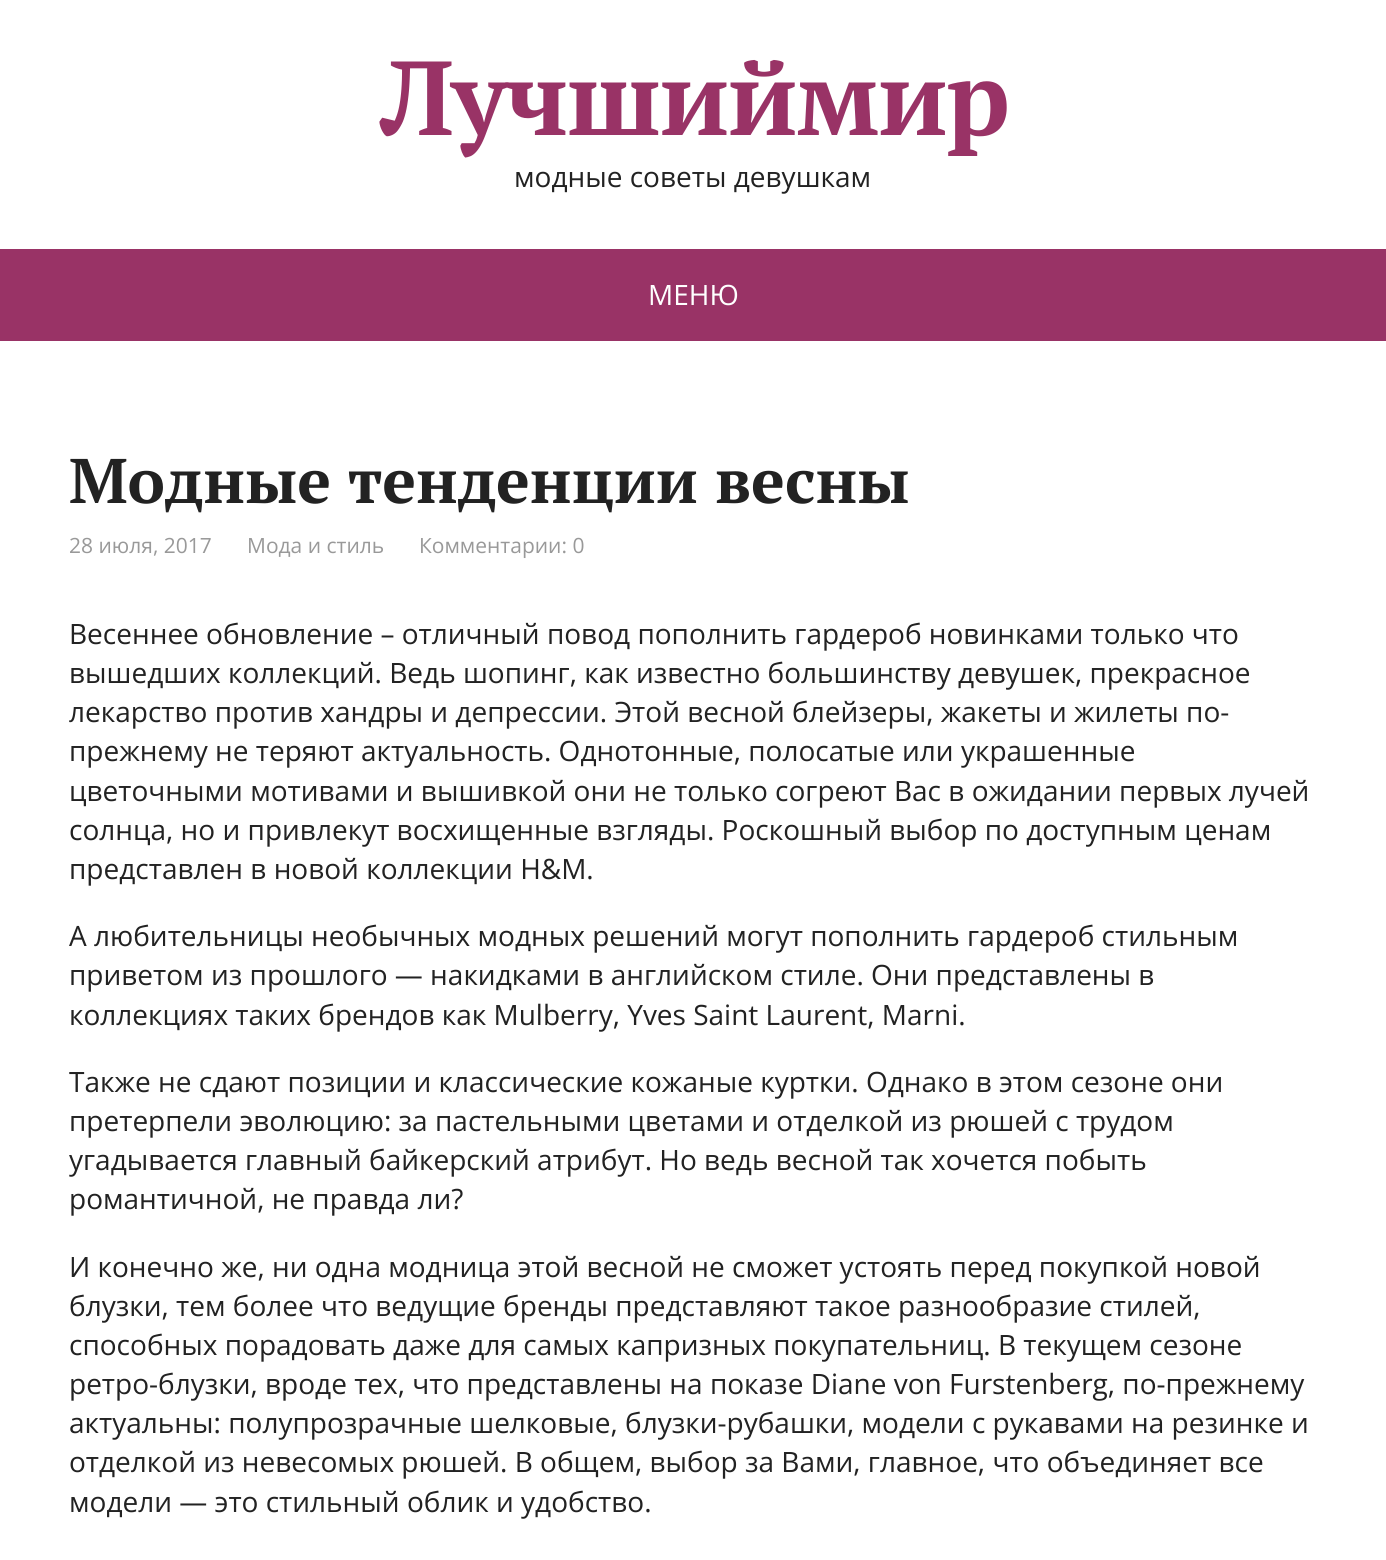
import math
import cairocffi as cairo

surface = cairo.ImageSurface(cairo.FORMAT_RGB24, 1386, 1560)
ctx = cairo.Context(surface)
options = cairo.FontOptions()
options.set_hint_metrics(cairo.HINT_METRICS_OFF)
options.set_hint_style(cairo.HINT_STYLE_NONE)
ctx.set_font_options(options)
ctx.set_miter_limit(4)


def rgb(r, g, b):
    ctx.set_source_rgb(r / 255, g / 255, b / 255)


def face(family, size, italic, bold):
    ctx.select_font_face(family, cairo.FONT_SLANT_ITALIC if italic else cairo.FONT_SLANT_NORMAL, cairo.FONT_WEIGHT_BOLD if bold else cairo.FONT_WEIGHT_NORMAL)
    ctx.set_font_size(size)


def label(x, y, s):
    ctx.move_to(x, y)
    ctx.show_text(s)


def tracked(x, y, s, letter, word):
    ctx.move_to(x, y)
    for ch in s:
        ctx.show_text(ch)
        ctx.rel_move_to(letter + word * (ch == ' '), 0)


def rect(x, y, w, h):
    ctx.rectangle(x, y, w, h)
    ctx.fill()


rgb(255, 255, 255)
ctx.paint()
face('PT Serif', 105, 0, 1)
rgb(153, 51, 102)
tracked(380, 135, 'Лучшиймир', -2, 0)
face('Open Sans', 28, 0, 0)
rgb(34, 34, 34)
label(514, 187, 'модные советы девушкам')
rgb(153, 51, 102)
rect(0, 249, 1386, 92)
rgb(255, 255, 255)
label(648, 305, 'МЕНЮ')
face('PT Serif', 63, 0, 1)
rgb(34, 34, 34)
label(69, 503, 'Модные тенденции весны')
face('Open Sans', 21, 0, 0)
rgb(153, 153, 153)
label(69, 553, '28 июля, 2017')
label(247, 553, 'Мода и стиль')
label(419, 553, 'Комментарии: 0')
face('Open Sans', 28, 0, 0)
rgb(34, 34, 34)
label(69, 644, 'Весеннее обновление – отличный повод пополнить гардероб новинками только что')
label(69, 683, 'вышедших коллекций. Ведь шопинг, как известно большинству девушек, прекрасное')
label(69, 722, 'лекарство против хандры и депрессии. Этой весной блейзеры, жакеты и жилеты по-')
label(69, 761, 'прежнему не теряют актуальность. Однотонные, полосатые или украшенные')
label(69, 801, 'цветочными мотивами и вышивкой они не только согреют Вас в ожидании первых лучей')
label(69, 840, 'солнца, но и привлекут восхищенные взгляды. Роскошный выбор по доступным ценам')
label(69, 879, 'представлен в новой коллекции H&M.')
label(69, 946, 'А любительницы необычных модных решений могут пополнить гардероб стильным')
label(69, 985, 'приветом из прошлого — накидками в английском стиле. Они представлены в')
label(69, 1025, 'коллекциях таких брендов как Mulberry, Yves Saint Laurent, Marni.')
label(69, 1092, 'Также не сдают позиции и классические кожаные куртки. Однако в этом сезоне они')
label(69, 1131, 'претерпели эволюцию: за пастельными цветами и отделкой из рюшей с трудом')
label(69, 1170, 'угадывается главный байкерский атрибут. Но ведь весной так хочется побыть')
label(69, 1209, 'романтичной, не правда ли?')
label(69, 1277, 'И конечно же, ни одна модница этой весной не сможет устоять перед покупкой новой')
label(69, 1316, 'блузки, тем более что ведущие бренды представляют такое разнообразие стилей,')
label(69, 1355, 'способных порадовать даже для самых капризных покупательниц. В текущем сезоне')
label(69, 1394, 'ретро-блузки, вроде тех, что представлены на показе Diane von Furstenberg, по-прежнему')
label(69, 1433, 'актуальны: полупрозрачные шелковые, блузки-рубашки, модели с рукавами на резинке и')
label(69, 1472, 'отделкой из невесомых рюшей. В общем, выбор за Вами, главное, что объединяет все')
label(69, 1512, 'модели — это стильный облик и удобство.')
surface.write_to_png('render.png')
